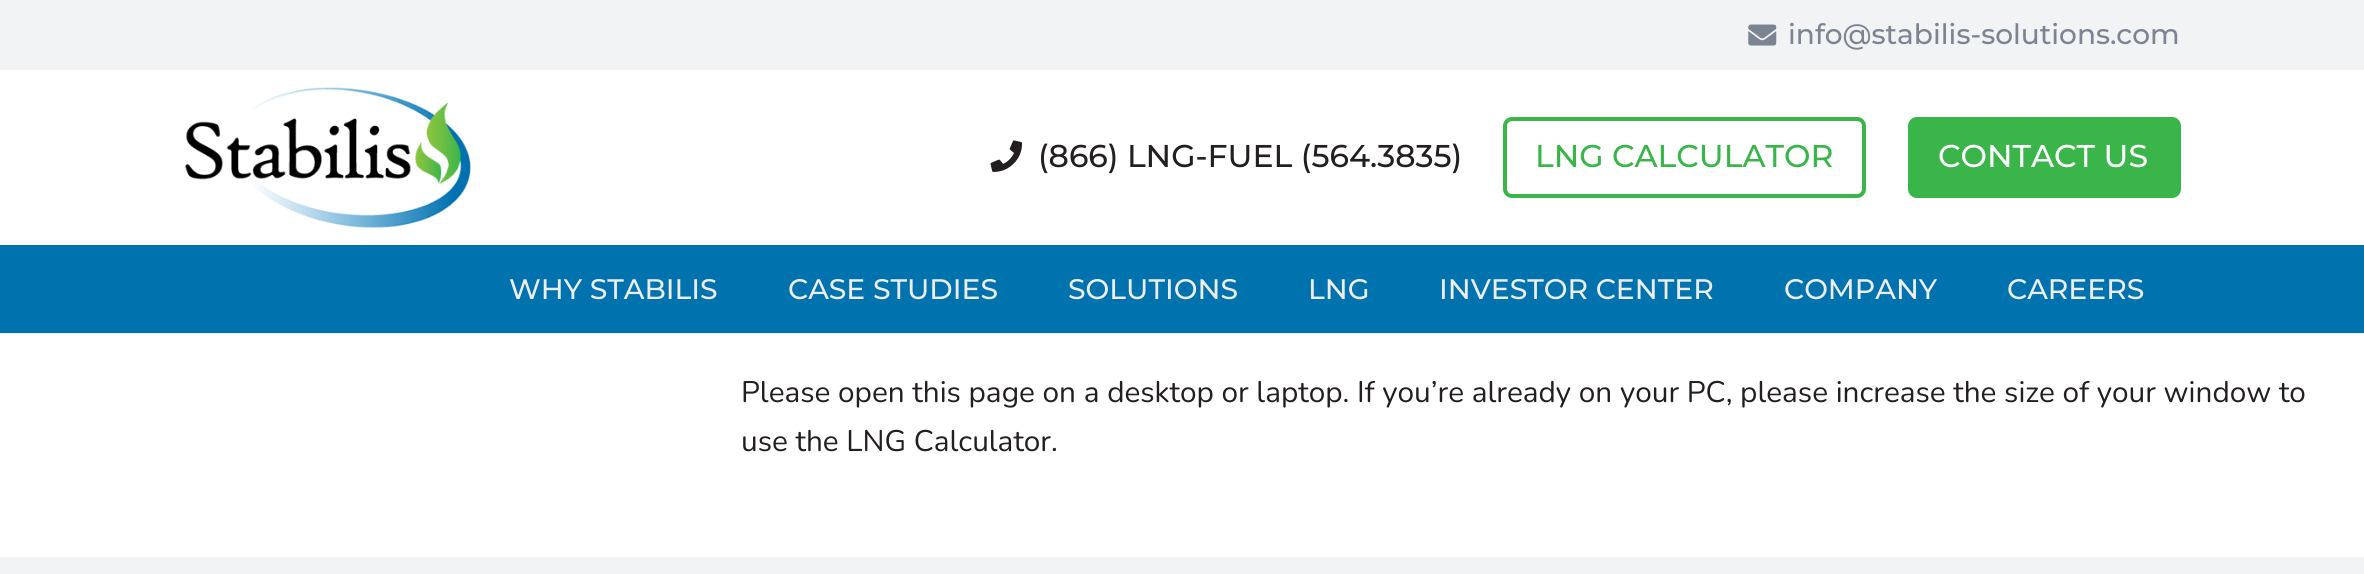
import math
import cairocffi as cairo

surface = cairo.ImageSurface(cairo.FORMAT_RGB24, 2364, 574)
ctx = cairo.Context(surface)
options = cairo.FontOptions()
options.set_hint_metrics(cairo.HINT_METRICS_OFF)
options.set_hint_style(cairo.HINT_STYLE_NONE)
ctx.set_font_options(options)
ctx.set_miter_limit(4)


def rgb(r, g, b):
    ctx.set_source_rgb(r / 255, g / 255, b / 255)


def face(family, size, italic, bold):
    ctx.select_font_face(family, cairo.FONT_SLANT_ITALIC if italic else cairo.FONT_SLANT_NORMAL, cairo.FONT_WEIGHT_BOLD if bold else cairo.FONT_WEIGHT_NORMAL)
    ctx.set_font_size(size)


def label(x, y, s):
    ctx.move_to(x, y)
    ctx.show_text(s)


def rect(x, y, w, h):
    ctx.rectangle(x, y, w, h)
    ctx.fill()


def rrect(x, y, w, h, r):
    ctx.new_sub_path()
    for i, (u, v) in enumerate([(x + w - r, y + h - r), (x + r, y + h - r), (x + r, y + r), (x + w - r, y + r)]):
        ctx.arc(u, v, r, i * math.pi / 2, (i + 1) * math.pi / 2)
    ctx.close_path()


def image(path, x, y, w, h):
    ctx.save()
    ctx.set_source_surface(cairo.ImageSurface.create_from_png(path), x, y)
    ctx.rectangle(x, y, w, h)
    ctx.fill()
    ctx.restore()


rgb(255, 255, 255)
ctx.paint()
rgb(242, 243, 245)
rect(0, 0, 2364, 70)
image('image0.png', 1748, 24, 29, 22)
face('Montserrat Medium', 28, 0, 0)
rgb(124, 132, 145)
label(1788, 44, 'info@stabilis-solutions.com')
image('image1.png', 185, 87, 286, 141)
image('image2.png', 990, 140, 33, 32)
face('Montserrat Medium', 31.5, 0, 0)
rgb(35, 31, 32)
label(1038, 167, '(866) LNG-FUEL (564.3835)')
rrect(1505, 119, 359, 77, 7)
rgb(57, 181, 74)
ctx.set_line_width(4)
ctx.stroke()
label(1535, 167, 'LNG CALCULATOR')
rrect(1908, 117, 273, 81, 9)
ctx.fill()
rgb(255, 255, 255)
label(1938, 167, 'CONTACT US')
rgb(235, 235, 235)
rect(0, 333, 2364, 1)
rgb(0, 114, 174)
rect(0, 245, 2364, 88)
face('Montserrat Medium', 28.25, 0, 0)
rgb(237, 237, 237)
label(509, 299, 'WHY STABILIS')
label(788, 299, 'CASE STUDIES')
label(1068, 299, 'SOLUTIONS')
label(1308, 299, 'LNG')
label(1439, 299, 'INVESTOR CENTER')
label(1784, 299, 'COMPANY')
label(2007, 299, 'CAREERS')
face('Nunito', 29.75, 0, 0)
rgb(35, 31, 32)
label(741, 402, 'Please open this page on a desktop or laptop. If you’re already on your PC, please increase the size of your window to')
label(741, 451, 'use the LNG Calculator.')
rgb(242, 243, 245)
rect(0, 557, 2364, 17)
surface.write_to_png('render.png')
